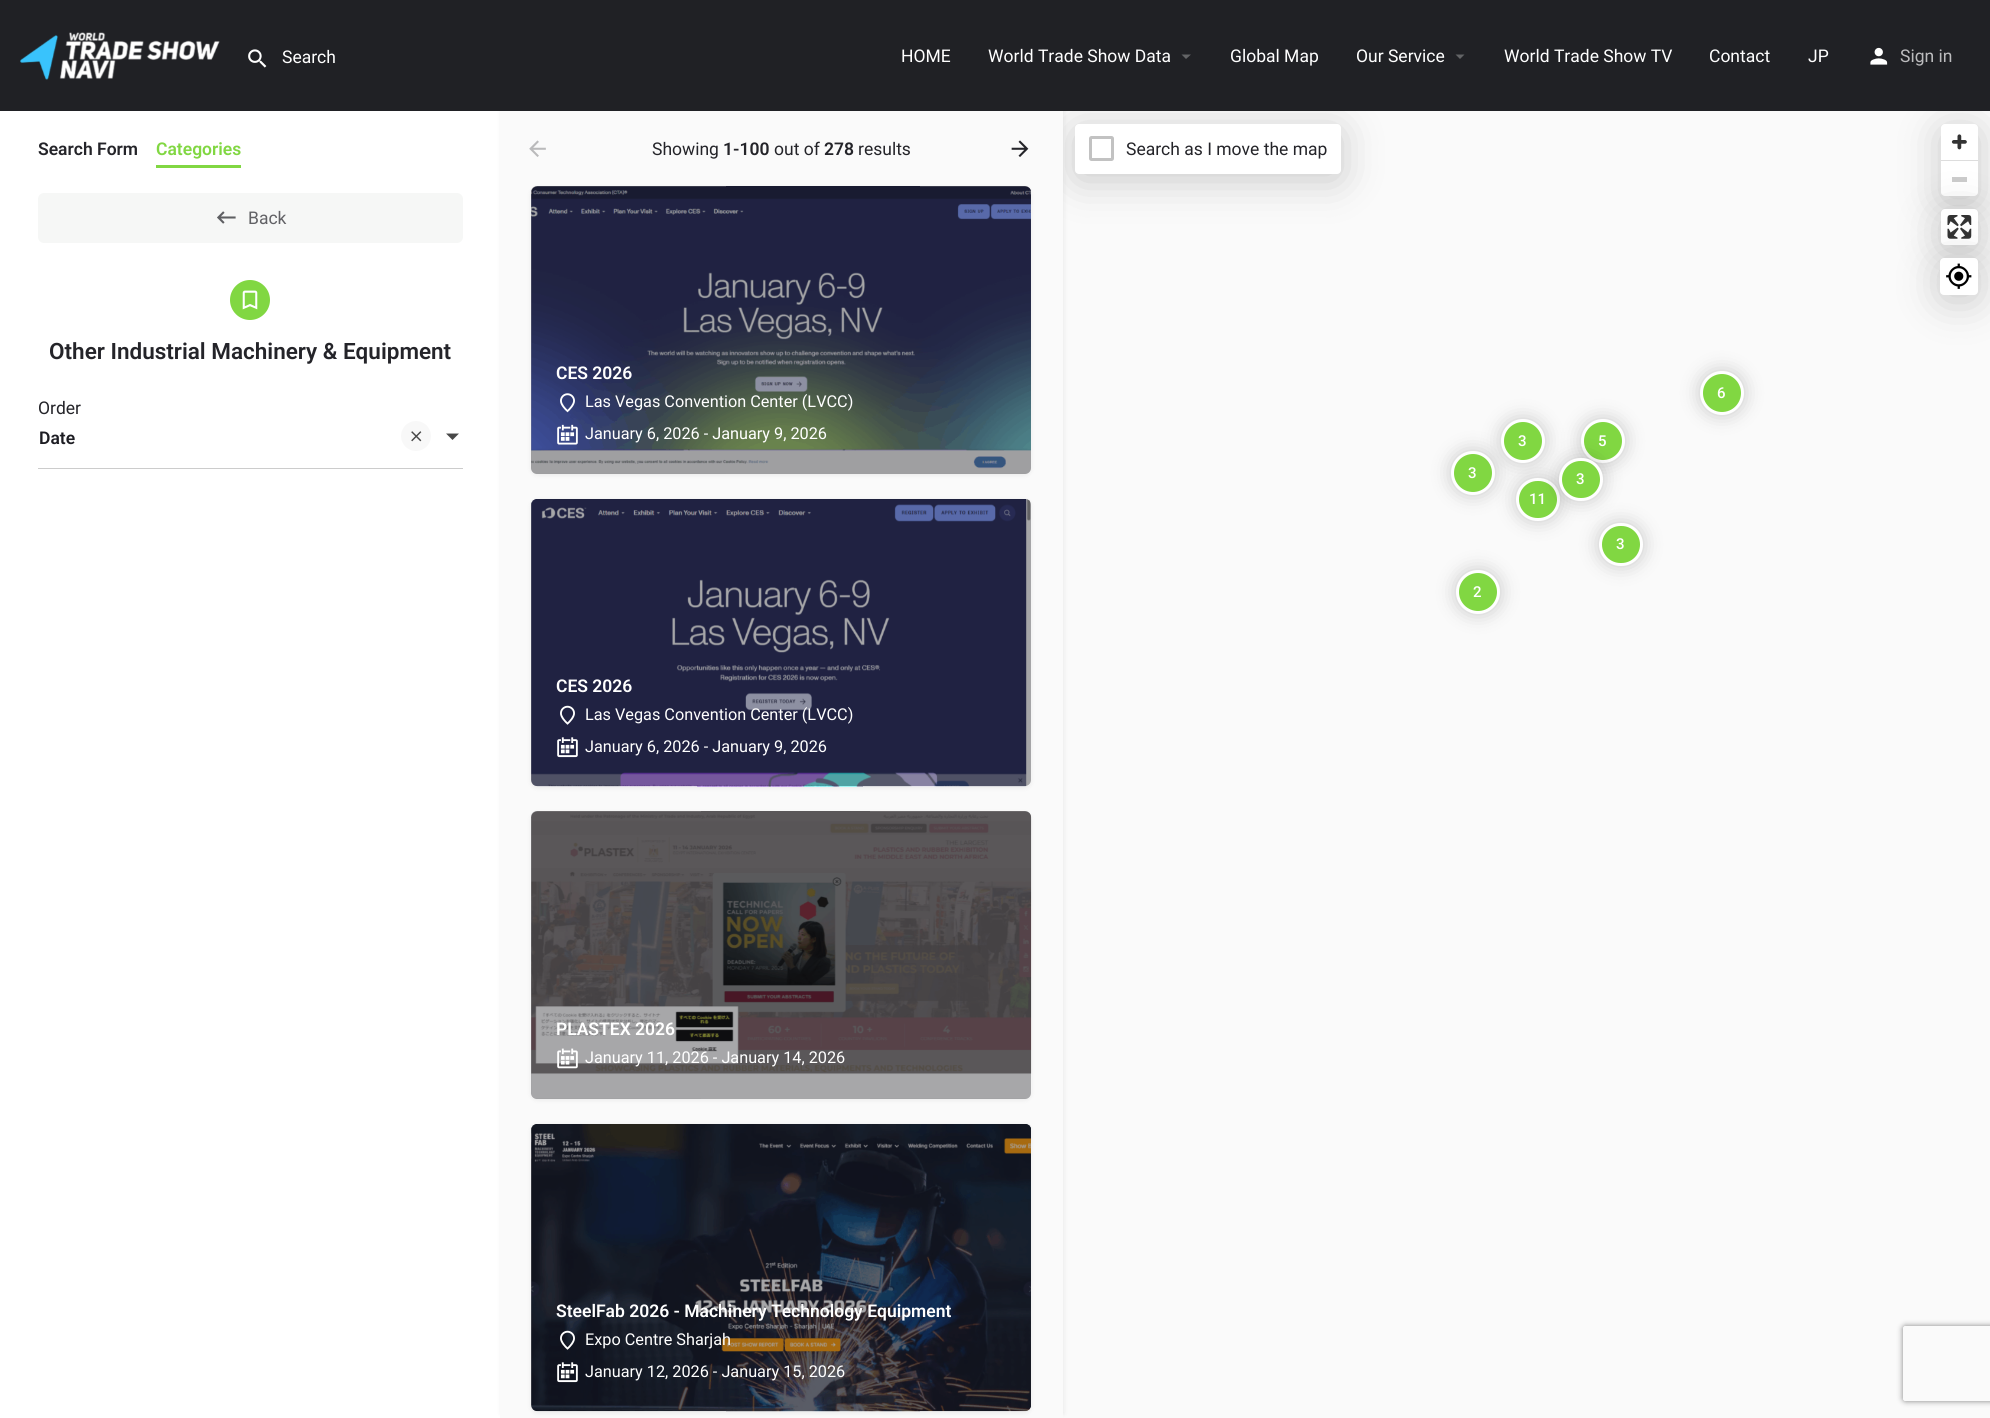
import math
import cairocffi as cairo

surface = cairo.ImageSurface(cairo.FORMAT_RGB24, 1990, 1418)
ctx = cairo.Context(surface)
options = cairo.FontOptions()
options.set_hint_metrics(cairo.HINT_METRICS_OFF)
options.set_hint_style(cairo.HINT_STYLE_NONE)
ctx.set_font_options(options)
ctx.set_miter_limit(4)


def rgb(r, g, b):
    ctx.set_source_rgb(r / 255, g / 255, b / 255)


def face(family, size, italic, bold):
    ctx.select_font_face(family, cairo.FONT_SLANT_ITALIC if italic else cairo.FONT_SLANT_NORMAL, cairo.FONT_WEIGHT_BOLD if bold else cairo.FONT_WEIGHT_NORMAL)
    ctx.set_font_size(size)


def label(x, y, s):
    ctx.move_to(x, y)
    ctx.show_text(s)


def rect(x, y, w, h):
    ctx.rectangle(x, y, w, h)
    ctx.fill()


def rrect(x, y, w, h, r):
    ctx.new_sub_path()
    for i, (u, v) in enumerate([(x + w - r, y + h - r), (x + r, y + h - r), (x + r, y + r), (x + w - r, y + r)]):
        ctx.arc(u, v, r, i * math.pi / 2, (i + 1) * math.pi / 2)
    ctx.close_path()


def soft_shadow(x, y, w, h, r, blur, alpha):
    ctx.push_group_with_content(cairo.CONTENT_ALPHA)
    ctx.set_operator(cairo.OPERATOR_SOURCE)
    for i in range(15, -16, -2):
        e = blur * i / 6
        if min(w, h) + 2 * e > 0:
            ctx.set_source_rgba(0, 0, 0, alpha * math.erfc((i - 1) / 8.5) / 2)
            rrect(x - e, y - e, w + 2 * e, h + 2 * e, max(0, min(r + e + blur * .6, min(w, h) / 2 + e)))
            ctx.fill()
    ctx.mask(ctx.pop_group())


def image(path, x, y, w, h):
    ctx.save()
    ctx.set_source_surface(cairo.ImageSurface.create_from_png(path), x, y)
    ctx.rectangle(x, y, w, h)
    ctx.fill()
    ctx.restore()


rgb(255, 255, 255)
ctx.paint()
rgb(250, 250, 250)
rect(1063, 111, 927, 1307)
rgb(0, 0, 0)
soft_shadow(501, 106, 563, 1308, 0, 2.5, 0.07)
soft_shadow(1075, 130, 266, 50, 4, 20.5, 0.2)
soft_shadow(1941, 130, 37, 73, 4, 20.5, 0.2)
rgb(32, 33, 37)
rect(0, 0, 1990, 111)
image('image0.png', 20, 32, 200, 48)
image('image1.png', 248, 49, 19, 19)
face('Roboto', 17.5, 0, 0)
rgb(255, 255, 255)
label(282, 63, 'Search')
label(901, 62, 'HOME')
label(988, 62, 'World Trade Show Data')
rgb(99, 100, 102)
ctx.new_path()
ctx.move_to(1181.5, 54.5)
ctx.line_to(1191, 54.5)
ctx.line_to(1186, 59)
ctx.close_path()
ctx.fill()
rgb(255, 255, 255)
label(1230, 62, 'Global Map')
label(1356, 62, 'Our Service')
rgb(99, 100, 102)
ctx.new_path()
ctx.move_to(1455.5, 54.5)
ctx.line_to(1464.5, 54.5)
ctx.line_to(1460, 59)
ctx.close_path()
ctx.fill()
rgb(255, 255, 255)
label(1504, 62, 'World Trade Show TV')
label(1709, 62, 'Contact')
label(1808, 62, 'JP')
image('image2.png', 1870, 47, 18, 18)
rgb(188, 188, 190)
label(1900, 62, 'Sign in')
face('Roboto SemiBold', 17.5, 0, 0)
rgb(36, 36, 41)
label(38, 155, 'Search Form')
rgb(129, 215, 66)
label(156, 155, 'Categories')
rect(156, 165, 85, 3)
rgb(246, 247, 246)
rrect(38, 193, 425, 50, 6)
ctx.fill()
image('image3.png', 217, 211, 19, 13)
face('Roboto', 17.5, 0, 0)
rgb(97, 97, 101)
label(248, 224, 'Back')
rgb(129, 215, 66)
ctx.new_path()
ctx.arc(250, 300, 20, 0, 2 * math.pi)
ctx.fill()
image('image4.png', 242, 290, 16, 20)
face('Roboto SemiBold', 22.5, 0, 0)
rgb(36, 36, 41)
label(49, 359, 'Other Industrial Machinery & Equipment')
face('Roboto', 17.5, 0, 0)
label(38, 414, 'Order')
rgb(204, 204, 204)
rect(38, 468, 425, 1)
face('Roboto SemiBold', 17.5, 0, 0)
rgb(29, 29, 35)
label(39, 444, 'Date')
rgb(248, 248, 248)
ctx.new_path()
ctx.arc(416, 436, 15, 0, 2 * math.pi)
ctx.fill()
image('image5.png', 411, 431, 11, 11)
rgb(72, 72, 72)
ctx.new_path()
ctx.move_to(446, 433.5)
ctx.line_to(459, 433.5)
ctx.line_to(452.5, 440)
ctx.close_path()
ctx.fill()
rgb(250, 250, 250)
rect(500, 111, 563, 1307)
image('image6.png', 529, 140, 17, 17)
face('Roboto', 17.5, 0, 0)
rgb(36, 36, 41)
label(652, 155, 'Showing')
face('Roboto SemiBold', 17.5, 0, 0)
label(723, 155, '1-100')
face('Roboto', 17.5, 0, 0)
label(774, 155, 'out of')
face('Roboto SemiBold', 17.5, 0, 0)
label(824, 155, '278')
face('Roboto', 17.5, 0, 0)
label(858, 155, 'results')
image('image7.png', 1011, 140, 18, 17)
rgb(0, 0, 0)
soft_shadow(531, 188, 500, 287, 6, 2.5, 0.07)
image('image8.png', 531, 186, 500, 288)
ctx.set_source_rgba(0.141, 0.141, 0.161, 0.4)
rrect(531, 186, 500, 288, 6)
ctx.fill()
face('Roboto SemiBold', 17.5, 0, 0)
rgb(255, 255, 255)
label(556, 379, 'CES 2026')
image('image9.png', 560, 393, 15, 20)
face('Roboto', 16.25, 0, 0)
label(585, 407, 'Las Vegas Convention Center (LVCC)')
image('image10.png', 557, 424, 21, 21)
label(585, 439, 'January 6, 2026 - January 9, 2026')
rgb(0, 0, 0)
soft_shadow(531, 500, 500, 288, 6, 2.5, 0.07)
image('image11.png', 531, 499, 500, 288)
ctx.set_source_rgba(0.141, 0.141, 0.161, 0.4)
rrect(531, 499, 500, 287, 6)
ctx.fill()
face('Roboto SemiBold', 17.5, 0, 0)
rgb(255, 255, 255)
label(556, 692, 'CES 2026')
image('image12.png', 560, 705, 15, 20)
face('Roboto', 16.25, 0, 0)
label(585, 720, 'Las Vegas Convention Center (LVCC)')
image('image13.png', 557, 737, 21, 21)
label(585, 752, 'January 6, 2026 - January 9, 2026')
rgb(0, 0, 0)
soft_shadow(531, 813, 500, 287, 6, 2.5, 0.07)
image('image14.png', 531, 811, 501, 288)
ctx.set_source_rgba(0.141, 0.141, 0.161, 0.4)
rrect(531, 811, 500, 288, 6)
ctx.fill()
face('Roboto SemiBold', 17.5, 0, 0)
rgb(255, 255, 255)
label(556, 1035, 'PLASTEX 2026')
image('image15.png', 557, 1048, 21, 21)
face('Roboto', 16.25, 0, 0)
label(585, 1063, 'January 11, 2026 - January 14, 2026')
rgb(0, 0, 0)
soft_shadow(531, 1125, 500, 288, 6, 2.5, 0.07)
image('image16.png', 531, 1124, 500, 288)
ctx.set_source_rgba(0.141, 0.141, 0.161, 0.4)
rrect(531, 1124, 500, 287, 6)
ctx.fill()
face('Roboto SemiBold', 17.5, 0, 0)
rgb(255, 255, 255)
label(556, 1317, 'SteelFab 2026 - Machinery Technology Equipment')
image('image17.png', 560, 1330, 15, 20)
face('Roboto', 16.25, 0, 0)
label(585, 1345, 'Expo Centre Sharjah')
image('image18.png', 557, 1362, 21, 21)
label(585, 1377, 'January 12, 2026 - January 15, 2026')
rrect(1075, 124, 266, 50, 4)
ctx.fill()
rrect(1090.5, 137.5, 22, 22, 1)
rgb(194, 194, 194)
ctx.set_line_width(3)
ctx.stroke()
face('Roboto', 17.5, 0, 0)
rgb(36, 36, 41)
label(1126, 155, 'Search as I move the map')
rgb(255, 255, 255)
rrect(1941, 124, 37, 72, 4)
ctx.fill()
image('image19.png', 1951, 134, 16, 16)
rgb(221, 221, 221)
rect(1941, 160, 37, 1)
rgb(204, 204, 204)
rect(1952, 177, 15, 5)
rgb(0, 0, 0)
soft_shadow(1941, 215, 37, 36, 4, 20.5, 0.2)
rgb(255, 255, 255)
rrect(1941, 209, 37, 36, 4)
ctx.fill()
image('image20.png', 1947, 215, 25, 24)
rgb(0, 0, 0)
soft_shadow(1940, 264, 38, 37, 4, 20.5, 0.2)
rgb(255, 255, 255)
rrect(1940, 258, 38, 37, 4)
ctx.fill()
image('image21.png', 1946, 263, 26, 26)
rgb(0, 0, 0)
soft_shadow(1700, 371, 44, 44, 22, 9.5, 0.2)
rgb(129, 215, 66)
ctx.arc(1722, 393, 20.5, 0, 2 * math.pi)
ctx.fill_preserve()
rgb(255, 255, 255)
ctx.stroke()
face('Roboto Medium', 15, 0, 0)
label(1717, 398, '6')
rgb(0, 0, 0)
soft_shadow(1451, 451, 44, 44, 22, 9.5, 0.2)
rgb(129, 215, 66)
ctx.arc(1473, 473, 20.5, 0, 2 * math.pi)
ctx.fill_preserve()
rgb(255, 255, 255)
ctx.stroke()
rgb(0, 0, 0)
soft_shadow(1581, 419, 44, 44, 22, 9.5, 0.2)
rgb(129, 215, 66)
ctx.arc(1603, 441, 20.5, 0, 2 * math.pi)
ctx.fill_preserve()
rgb(255, 255, 255)
ctx.stroke()
rgb(0, 0, 0)
soft_shadow(1516, 478, 44, 43, 21.5, 9.5, 0.2)
rgb(129, 215, 66)
rrect(1517.5, 479.5, 41, 40, 20)
ctx.fill_preserve()
rgb(255, 255, 255)
ctx.stroke()
rgb(0, 0, 0)
soft_shadow(1559, 458, 44, 43, 21.5, 9.5, 0.2)
rgb(129, 215, 66)
rrect(1560.5, 459.5, 41, 40, 20)
ctx.fill_preserve()
rgb(255, 255, 255)
ctx.stroke()
rgb(0, 0, 0)
soft_shadow(1501, 419, 44, 44, 22, 9.5, 0.2)
rgb(129, 215, 66)
ctx.arc(1523, 441, 20.5, 0, 2 * math.pi)
ctx.fill_preserve()
rgb(255, 255, 255)
ctx.stroke()
label(1518, 446, '3')
label(1598, 446, '5')
label(1468, 478, '3')
label(1576, 484, '3')
label(1529, 504, '11')
rgb(0, 0, 0)
soft_shadow(1599, 523, 44, 43, 21.5, 9.5, 0.2)
rgb(129, 215, 66)
rrect(1600.5, 524.5, 41, 40, 20)
ctx.fill_preserve()
rgb(255, 255, 255)
ctx.stroke()
label(1616, 549, '3')
rgb(0, 0, 0)
soft_shadow(1456, 570, 44, 44, 22, 9.5, 0.2)
rgb(129, 215, 66)
ctx.arc(1478, 592, 20.5, 0, 2 * math.pi)
ctx.fill_preserve()
rgb(255, 255, 255)
ctx.stroke()
label(1473, 597, '2')
ctx.save()
ctx.set_fill_rule(cairo.FILL_RULE_EVEN_ODD)
ctx.new_path()
ctx.move_to(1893, 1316)
ctx.line_to(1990, 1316)
ctx.line_to(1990, 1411)
ctx.line_to(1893, 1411)
ctx.close_path()
ctx.move_to(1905.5, 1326)
ctx.line_to(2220.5, 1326)
ctx.curve_to(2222, 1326, 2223, 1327, 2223, 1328.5)
ctx.line_to(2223, 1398.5)
ctx.curve_to(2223, 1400, 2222, 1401, 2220.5, 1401)
ctx.line_to(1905.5, 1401)
ctx.curve_to(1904, 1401, 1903, 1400, 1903, 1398.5)
ctx.line_to(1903, 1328.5)
ctx.curve_to(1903, 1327, 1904, 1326, 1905.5, 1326)
ctx.close_path()
ctx.clip()
rgb(128, 128, 128)
soft_shadow(1903, 1326, 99, 75, 2.5, 3, 1)
ctx.restore()
surface.write_to_png('render.png')
